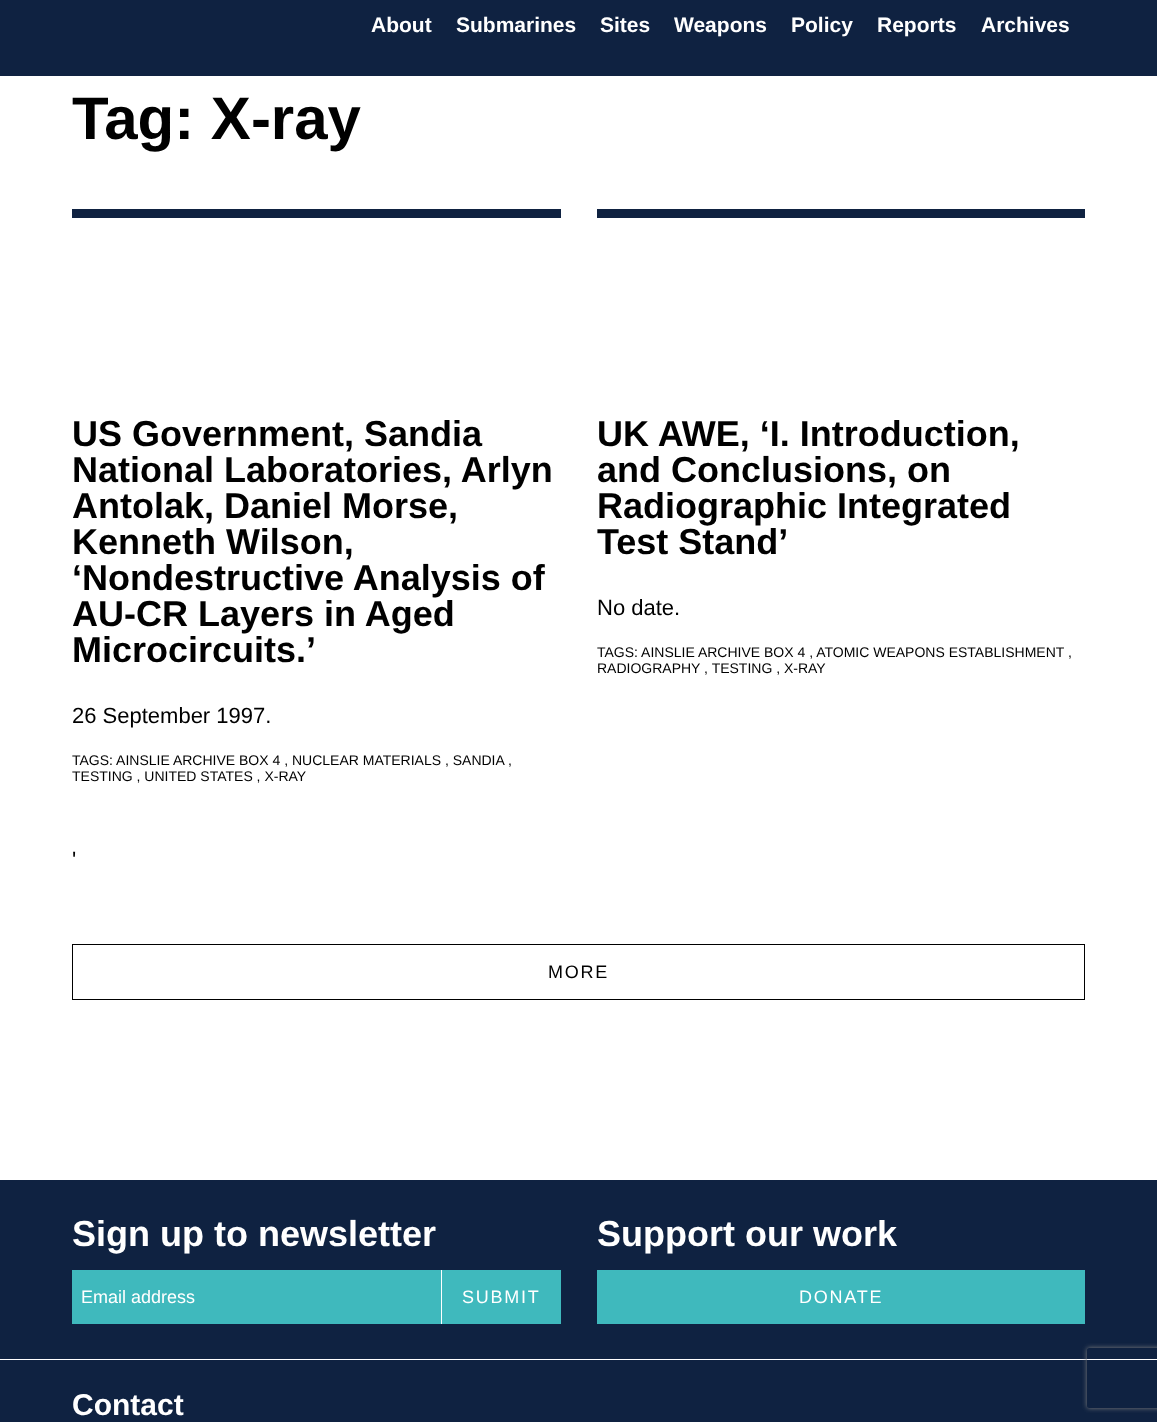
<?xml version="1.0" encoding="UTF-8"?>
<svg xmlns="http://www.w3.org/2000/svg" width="1157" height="1422">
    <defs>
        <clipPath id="clip1"><path d="M 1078 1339 H 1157 V 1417 H 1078 Z M 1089 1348 H 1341 C 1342 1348 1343 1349 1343 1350 V 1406 C 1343 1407 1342 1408 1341 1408 H 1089 C 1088 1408 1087 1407 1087 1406 V 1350 C 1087 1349 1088 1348 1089 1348 Z" clip-rule="evenodd"/></clipPath>
        <filter id="blur1" x="-50%" y="-200%" width="200%" height="500%"><feGaussianBlur stdDeviation="2.5"/></filter>
    </defs>
    <rect width="100%" height="100%" fill="#FFFFFF"/>
    <rect x="0" y="0" width="1157" height="76" fill="#0F2241"/>
    <text x="371" y="32" font-family="Liberation Sans" font-size="21" font-weight="700" fill="#FFFFFF">About</text>
    <text x="456" y="32" font-family="Liberation Sans" font-size="21" font-weight="700" fill="#FFFFFF">Submarines</text>
    <text x="600" y="32" font-family="Liberation Sans" font-size="21" font-weight="700" fill="#FFFFFF">Sites</text>
    <text x="674" y="32" font-family="Liberation Sans" font-size="21" font-weight="700" fill="#FFFFFF">Weapons</text>
    <text x="791" y="32" font-family="Liberation Sans" font-size="21" font-weight="700" fill="#FFFFFF">Policy</text>
    <text x="877" y="32" font-family="Liberation Sans" font-size="21" font-weight="700" fill="#FFFFFF">Reports</text>
    <text x="981" y="32" font-family="Liberation Sans" font-size="21" font-weight="700" fill="#FFFFFF">Archives</text>
    <text x="72" y="139" font-family="Liberation Sans" font-size="60" font-weight="700" fill="#000000">Tag: X-ray</text>
    <rect x="72" y="209" width="489" height="9" fill="#0F2241"/>
    <text font-family="Liberation Sans" font-size="36" font-weight="700" fill="#000000">
        <tspan x="72" y="446">US Government, Sandia</tspan>
        <tspan x="72" y="482">National Laboratories, Arlyn</tspan>
        <tspan x="72" y="518">Antolak, Daniel Morse,</tspan>
        <tspan x="72" y="554">Kenneth Wilson,</tspan>
        <tspan x="72" y="590">‘Nondestructive Analysis of</tspan>
        <tspan x="72" y="626">AU-CR Layers in Aged</tspan>
        <tspan x="72" y="662">Microcircuits.’</tspan>
    </text>
    <text x="72" y="723" font-family="Liberation Sans" font-size="22" fill="#000000">26 September 1997.</text>
    <text font-family="Liberation Sans" font-size="14" fill="#000000">
        <tspan x="72" y="765">TAGS: AINSLIE ARCHIVE BOX 4 , NUCLEAR MATERIALS , SANDIA ,</tspan>
        <tspan x="72" y="781">TESTING , UNITED STATES , X-RAY</tspan>
    </text>
    <rect x="597" y="209" width="488" height="9" fill="#0F2241"/>
    <text font-family="Liberation Sans" font-size="36" font-weight="700" fill="#000000">
        <tspan x="597" y="446">UK AWE, ‘I. Introduction,</tspan>
        <tspan x="597" y="482">and Conclusions, on</tspan>
        <tspan x="597" y="518">Radiographic Integrated</tspan>
        <tspan x="597" y="554">Test Stand’</tspan>
    </text>
    <text x="597" y="615" font-family="Liberation Sans" font-size="22" fill="#000000">No date.</text>
    <text font-family="Liberation Sans" font-size="14" fill="#000000">
        <tspan x="597" y="657">TAGS: AINSLIE ARCHIVE BOX 4 , ATOMIC WEAPONS ESTABLISHMENT ,</tspan>
        <tspan x="597" y="673">RADIOGRAPHY , TESTING , X-RAY</tspan>
    </text>
    <text x="72" y="867" font-family="Liberation Sans" font-size="22" fill="#000000">'</text>
    <rect x="72.5" y="944.5" width="1012" height="55" fill="none" stroke="#000000"/>
    <text x="548" y="978" font-family="Liberation Sans" font-size="18" letter-spacing="1.75" fill="#000000">MORE</text>
    <rect x="0" y="1180" width="1157" height="242" fill="#0F2241"/>
    <text x="72" y="1246" font-family="Liberation Sans" font-size="36" font-weight="700" fill="#FFFFFF">Sign up to newsletter</text>
    <rect x="72" y="1270" width="369" height="54" fill="#3FB9BD"/>
    <text x="81" y="1303" font-family="Liberation Sans" font-size="18" fill="#FFFFFF">Email address</text>
    <rect x="442" y="1270" width="119" height="54" fill="#3FB9BD"/>
    <rect x="441" y="1270" width="1" height="54" fill="#FFFFFF"/>
    <text x="462" y="1303" font-family="Liberation Sans" font-size="18" letter-spacing="1.75" fill="#FFFFFF">SUBMIT</text>
    <text x="597" y="1246" font-family="Liberation Sans" font-size="36" font-weight="700" fill="#FFFFFF">Support our work</text>
    <rect x="597" y="1270" width="488" height="54" fill="#3FB9BD"/>
    <text x="799" y="1303" font-family="Liberation Sans" font-size="18" letter-spacing="1.75" fill="#FFFFFF">DONATE</text>
    <rect x="0" y="1359" width="1157" height="1" fill="#FFFFFF"/>
    <text x="72" y="1415" font-family="Liberation Sans" font-size="30" font-weight="700" fill="#FFFFFF">Contact</text>
    <g clip-path="url(#clip1)">
        <rect x="1087" y="1348" width="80" height="60" rx="2" fill="#808080" filter="url(#blur1)"/>
    </g>
</svg>
